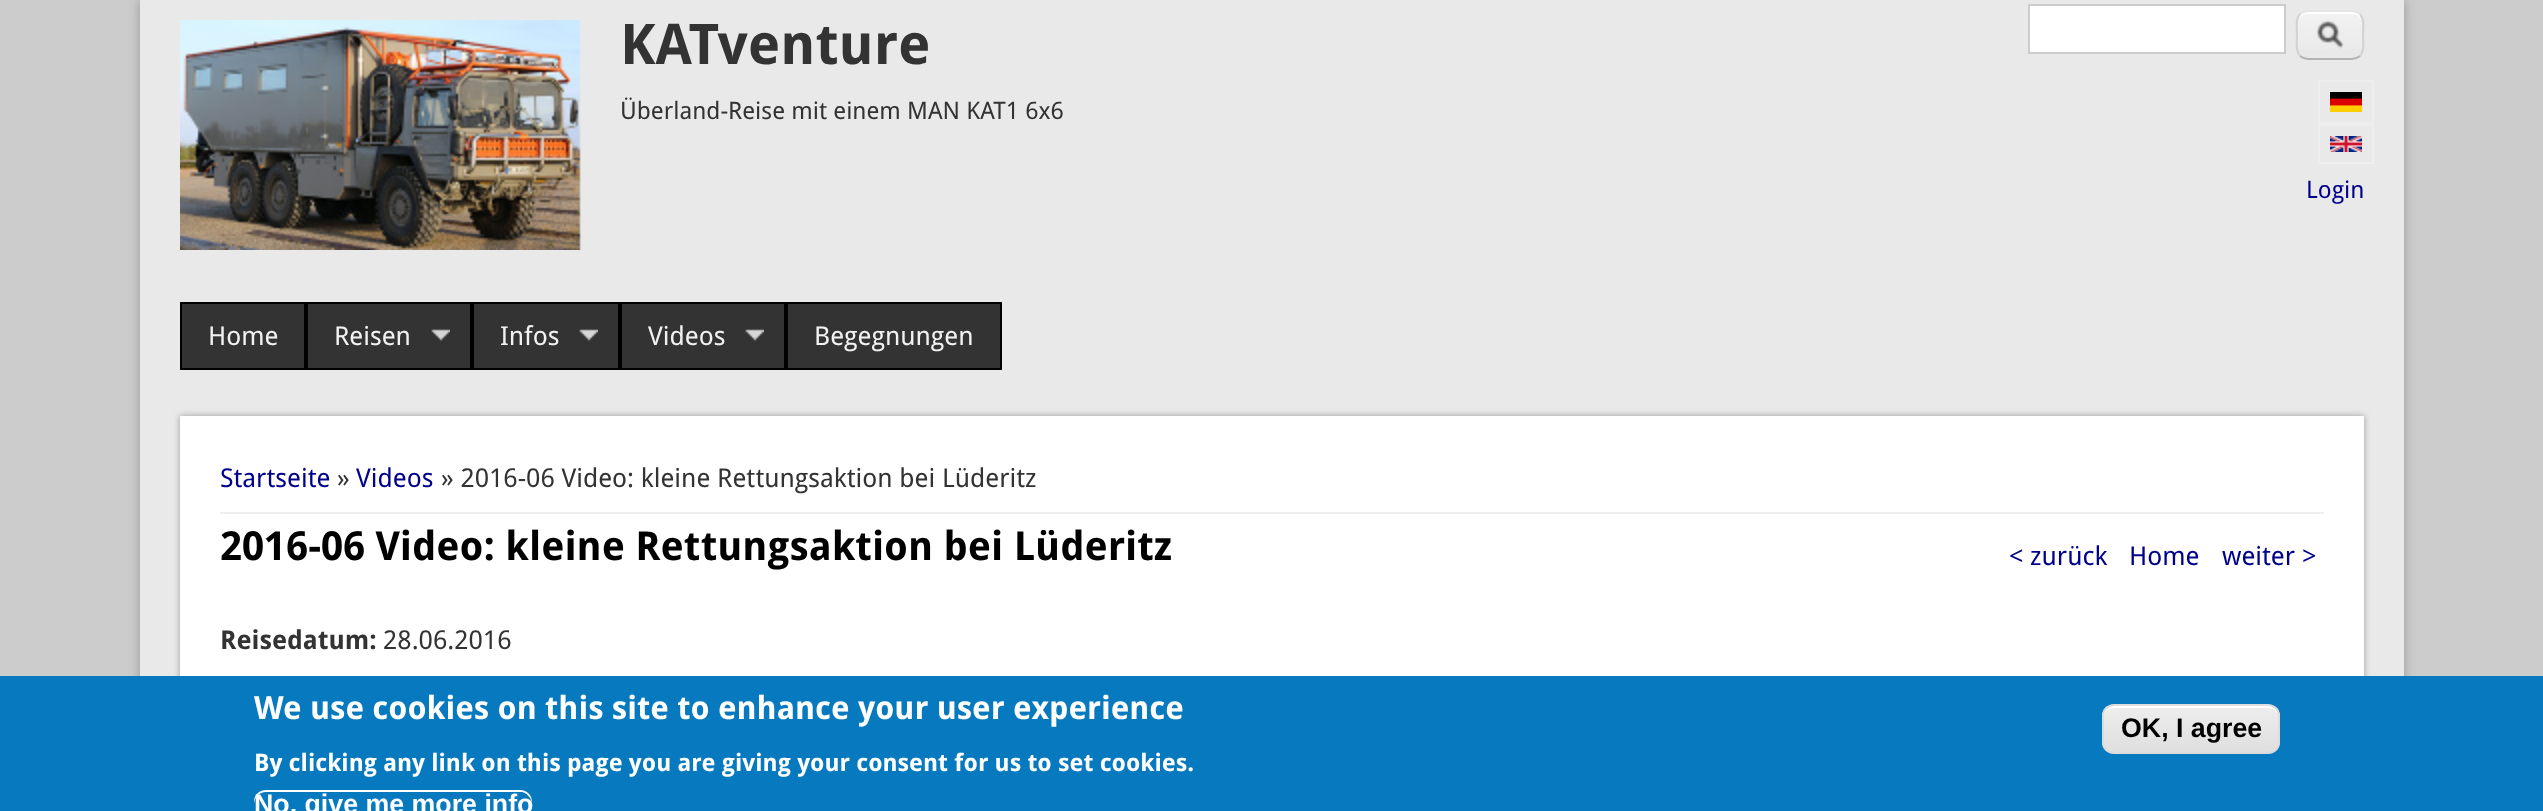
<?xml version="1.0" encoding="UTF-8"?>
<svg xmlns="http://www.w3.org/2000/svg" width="2543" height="811">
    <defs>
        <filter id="blur1" x="-50%" y="-200%" width="200%" height="500%"><feGaussianBlur stdDeviation="6"/></filter>
        <filter id="blur2" x="-50%" y="-200%" width="200%" height="500%"><feGaussianBlur stdDeviation="3"/></filter>
        <clipPath id="clip1"><rect x="2102" y="704" width="178" height="50" rx="12"/></clipPath>
        <linearGradient id="g1" gradientUnits="userSpaceOnUse" x1="2191" y1="706" x2="2191" y2="752"><stop offset="0.05" stop-color="#EDEDED"/><stop offset="1" stop-color="#DFDFDF"/></linearGradient>
    </defs>
    <rect width="100%" height="100%" fill="#CCCCCC"/>
    <rect x="140" y="0" width="2264" height="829" fill="#999999" filter="url(#blur1)"/>
    <rect x="140" y="0" width="2264" height="676" fill="#E9E9E9"/>
    <image x="180" y="20" width="401" height="230" href="img_01.png"/>
    <text x="620" y="64" font-family="Droid Sans" font-size="56" font-weight="700" fill="#333333">KATventure</text>
    <text x="620" y="119" font-family="Droid Sans" font-size="24" fill="#333333">Überland-Reise mit einem MAN KAT1 6x6</text>
    <rect x="2029" y="5" width="256" height="48" fill="#FFFFFF" stroke="#CCCCCC" stroke-width="2"/>
    <image x="2296" y="12" width="68" height="37" href="img_02.png"/>
    <path d="M 2308 14 H 2352 C 2358 14 2362 18 2362 24 C 2362 12 2355 12 2345 12 H 2315 C 2305 12 2298 12 2298 24 C 2298 18 2302 14 2308 14 Z" fill="#FFFFFF"/>
    <path d="M 2300 14 C 2302.5 12 2305 11 2308 11 H 2352 C 2355 11 2357.5 12 2360 14" fill="none" stroke="#E4E4E4" stroke-width="2"/>
    <path d="M 2360 14 C 2365 19.5 2363 28.5 2363 35 C 2363 41.5 2365 50.5 2360 56" fill="none" stroke="#D2D2D2" stroke-width="2"/>
    <path d="M 2360 56 C 2357.5 58 2355 59 2352 59 H 2308 C 2305 59 2302.5 58 2300 56" fill="none" stroke="#B4B4B4" stroke-width="2"/>
    <path d="M 2300 56 C 2295 50.5 2297 41.5 2297 35 C 2297 28.5 2295 19.5 2300 14" fill="none" stroke="#D2D2D2" stroke-width="2"/>
    <rect x="2319" y="81" width="54" height="42" fill="none" stroke="#EEEEEE" stroke-width="2"/>
    <image x="2330" y="92" width="32" height="20" href="img_03.png"/>
    <rect x="2319" y="125" width="54" height="38" fill="none" stroke="#EEEEEE" stroke-width="2"/>
    <image x="2330" y="136" width="32" height="16" href="img_04.png"/>
    <text x="2306" y="198" font-family="Droid Sans" font-size="24" fill="#00008B">Login</text>
    <rect x="181" y="303" width="124" height="66" fill="#333333" stroke="#000000" stroke-width="2"/>
    <text x="208" y="345" font-family="Droid Sans" font-size="26" fill="#F1F1F1">Home</text>
    <rect x="307" y="303" width="164" height="66" fill="#333333" stroke="#000000" stroke-width="2"/>
    <text x="334" y="345" font-family="Droid Sans" font-size="26" fill="#F1F1F1">Reisen</text>
    <image x="431" y="329" width="19" height="12" href="img_05.png"/>
    <rect x="473" y="303" width="146" height="66" fill="#333333" stroke="#000000" stroke-width="2"/>
    <text x="500" y="345" font-family="Droid Sans" font-size="26" fill="#F1F1F1">Infos</text>
    <image x="579" y="329" width="19" height="12" href="img_05.png"/>
    <rect x="621" y="303" width="164" height="66" fill="#333333" stroke="#000000" stroke-width="2"/>
    <text x="648" y="345" font-family="Droid Sans" font-size="26" fill="#F1F1F1">Videos</text>
    <image x="745" y="329" width="19" height="12" href="img_05.png"/>
    <rect x="787" y="303" width="214" height="66" fill="#333333" stroke="#000000" stroke-width="2"/>
    <text x="814" y="345" font-family="Droid Sans" font-size="26" fill="#F1F1F1">Begegnungen</text>
    <rect x="180" y="416" width="2184" height="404" fill="#999999" filter="url(#blur2)"/>
    <rect x="180" y="416" width="2184" height="260" fill="#FFFFFF"/>
    <rect x="220" y="512" width="2104" height="2" fill="#EEEEEE"/>
    <text x="220" y="487" font-family="Droid Sans" font-size="26" fill="#00008B">Startseite</text>
    <text x="337" y="487" font-family="Droid Sans" font-size="26" fill="#333333">»</text>
    <text x="356" y="487" font-family="Droid Sans" font-size="26" fill="#00008B">Videos</text>
    <text x="441" y="487" font-family="Droid Sans" font-size="26" fill="#333333">» 2016-06 Video: kleine Rettungsaktion bei Lüderitz</text>
    <text x="220" y="560" font-family="Droid Sans" font-size="40" font-weight="700" fill="#000000">2016-06 Video: kleine Rettungsaktion bei Lüderitz</text>
    <text x="2009" y="565" font-family="Droid Sans" font-size="26" fill="#00008B">&lt; zurück</text>
    <text x="2129" y="565" font-family="Droid Sans" font-size="26" fill="#00008B">Home</text>
    <text x="2222" y="565" font-family="Droid Sans" font-size="26" fill="#00008B">weiter &gt;</text>
    <text x="220" y="649" font-family="Droid Sans" font-size="26" font-weight="700" fill="#333333">Reisedatum:</text>
    <text x="383" y="649" font-family="Droid Sans" font-size="26" fill="#333333">28.06.2016</text>
    <rect x="0" y="676" width="2543" height="135" fill="#0779BF"/>
    <text x="254" y="719" font-family="Droid Sans" font-size="32" font-weight="700" fill="#FFFFFF">We use cookies on this site to enhance your user experience</text>
    <text x="254" y="771" font-family="Droid Sans" font-size="24" font-weight="700" fill="#FFFFFF">By clicking any link on this page you are giving your consent for us to set cookies.</text>
    <path d="M 266 792 H 522 C 527 793 531 798 532 803 V 802 C 532 795 527 790 520 790 H 266 C 259 790 254 795 254 802 V 803 C 255 797 259 792 266 792 Z" fill="#FFFFFF"/>
    <text x="254" y="813" font-family="Liberation Sans" font-size="26.75" font-weight="700" fill="#FFFFFF">No, give me more info</text>
    <g clip-path="url(#clip1)">
        <rect x="2102" y="706" width="178" height="46" fill="url(#g1)"/>
    </g>
    <path d="M 2114 708 H 2268 C 2274 708 2278 712 2278 718 V 716 C 2278 710 2274 706 2268 706 H 2114 C 2108 706 2104 710 2104 716 V 718 C 2104 712 2108 708 2114 708 Z" fill="#FFFFFF"/>
    <rect x="2103" y="705" width="176" height="48" rx="11" fill="none" stroke="#DCDCDC" stroke-width="2"/>
    <text x="2121" y="737" font-family="Liberation Sans" font-size="26.75" font-weight="700" fill="#000000">OK, I agree</text>
</svg>
